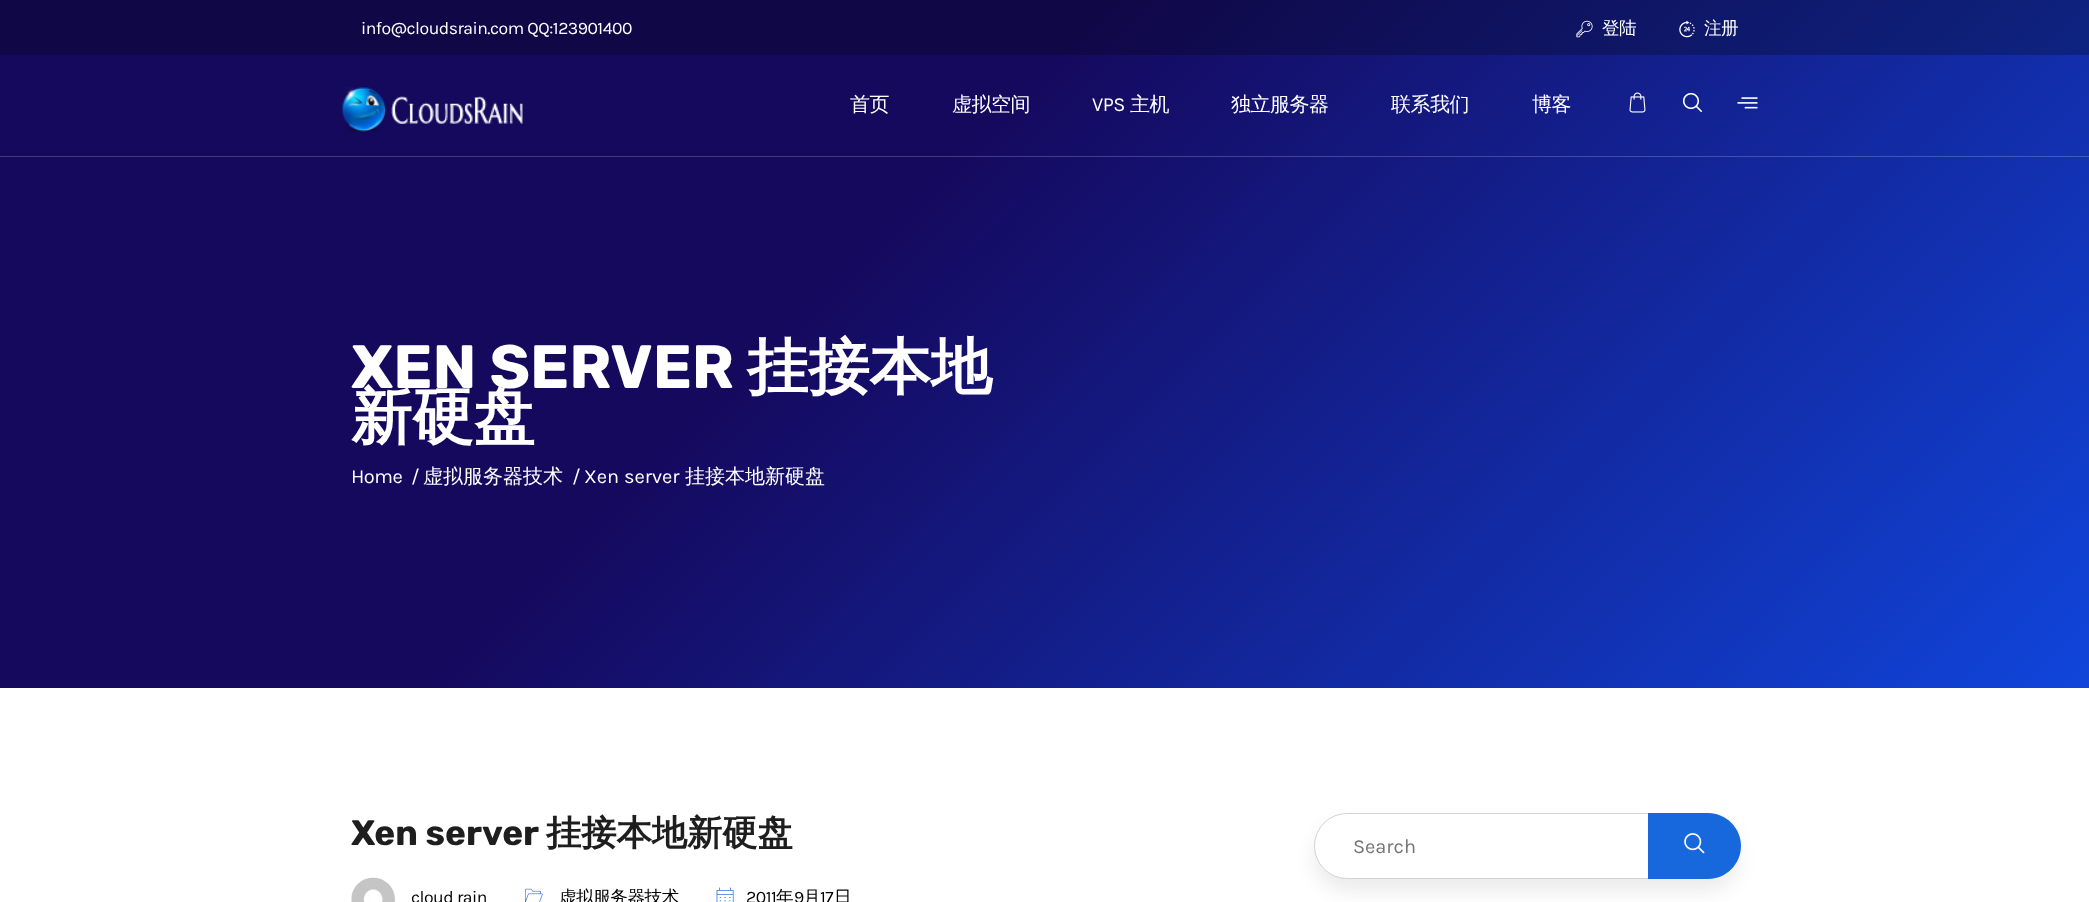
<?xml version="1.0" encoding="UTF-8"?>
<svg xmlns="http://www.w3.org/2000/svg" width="2089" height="902">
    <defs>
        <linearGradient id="g1" gradientUnits="userSpaceOnUse" x1="1739" y1="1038" x2="351" y2="-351"><stop offset="0" stop-color="#0C34A4"/><stop offset="0.6" stop-color="#100747"/><stop offset="0.99" stop-color="#100747"/></linearGradient>
        <linearGradient id="g2" gradientUnits="userSpaceOnUse" x1="1739" y1="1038" x2="351" y2="-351"><stop offset="0" stop-color="#1045DB"/><stop offset="0.6" stop-color="#15095E"/><stop offset="0.99" stop-color="#15095E"/></linearGradient>
        <linearGradient id="g3" gradientUnits="userSpaceOnUse" x1="1739" y1="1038" x2="351" y2="-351"><stop offset="0" stop-color="#406AE2"/><stop offset="0.6" stop-color="#443A7E"/><stop offset="0.99" stop-color="#443A7E"/></linearGradient>
        <filter id="blur1" x="-50%" y="-200%" width="200%" height="500%"><feGaussianBlur stdDeviation="9.5"/></filter>
    </defs>
    <rect width="100%" height="100%" fill="#FFFFFF"/>
    <rect x="0" y="0" width="2089" height="55" fill="url(#g1)"/>
    <text x="361" y="34" font-family="Karla" font-size="17.6" letter-spacing="-0.5" fill="#FFFFFF">info@cloudsrain.com QQ:123901400</text>
    <image x="1576" y="20" width="17" height="18" href="img_01.png"/>
    <text x="1602" y="34" font-family="WenQuanYi Zen Hei" font-size="17.6" font-weight="500" letter-spacing="-0.5" fill="#FFFFFF">登陆</text>
    <image x="1679" y="20" width="16" height="18" href="img_02.png"/>
    <text x="1704" y="34" font-family="WenQuanYi Zen Hei" font-size="17.6" font-weight="500" letter-spacing="-0.5" fill="#FFFFFF">注册</text>
    <rect x="0" y="55" width="2089" height="633" fill="url(#g2)"/>
    <image x="342" y="87" width="181" height="45" href="img_03.png"/>
    <text x="850" y="111" font-family="WenQuanYi Zen Hei" font-size="20" font-weight="500" letter-spacing="-0.5" fill="#FFFFFF">首页</text>
    <text x="952" y="111" font-family="WenQuanYi Zen Hei" font-size="20" font-weight="500" letter-spacing="-0.5" fill="#FFFFFF">虚拟空间</text>
    <text x="1092" y="111" font-family="Karla" font-size="20" letter-spacing="-0.5" fill="#FFFFFF">VPS</text>
    <text x="1130" y="111" font-family="WenQuanYi Zen Hei" font-size="20" font-weight="500" letter-spacing="-0.5" fill="#FFFFFF">主机</text>
    <text x="1231" y="111" font-family="WenQuanYi Zen Hei" font-size="20" font-weight="500" letter-spacing="-0.5" fill="#FFFFFF">独立服务器</text>
    <text x="1391" y="111" font-family="WenQuanYi Zen Hei" font-size="20" font-weight="500" letter-spacing="-0.5" fill="#FFFFFF">联系我们</text>
    <text x="1532" y="111" font-family="WenQuanYi Zen Hei" font-size="20" font-weight="500" letter-spacing="-0.5" fill="#FFFFFF">博客</text>
    <image x="1629" y="92" width="17" height="21" href="img_04.png"/>
    <image x="1682" y="92" width="20" height="20" href="img_05.png"/>
    <image x="1737" y="97" width="21" height="12" href="img_06.png"/>
    <rect x="0" y="156" width="2089" height="1" fill="url(#g3)"/>
    <text x="351" y="388" font-family="Rubik" font-size="61.25" font-weight="700" fill="#FFFFFF">XEN SERVER</text>
    <text x="747" y="388" font-family="WenQuanYi Zen Hei" font-size="61.25" font-weight="700" fill="#FFFFFF">挂接本地</text>
    <text x="351" y="438" font-family="WenQuanYi Zen Hei" font-size="61.25" font-weight="700" fill="#FFFFFF">新硬盘</text>
    <text x="351" y="483" font-family="Karla" font-size="20" letter-spacing="-0.5" fill="#FFFFFF">Home</text>
    <text x="411" y="483" font-family="Karla" font-size="20" fill="#FFFFFF">/</text>
    <text x="423" y="483" font-family="WenQuanYi Zen Hei" font-size="20" font-weight="500" fill="#FFFFFF">虚拟服务器技术</text>
    <text x="572" y="483" font-family="Karla" font-size="20" fill="#FFFFFF">/</text>
    <text x="584" y="483" font-family="Karla" font-size="20" fill="#FFFFFF">Xen server</text>
    <text x="685" y="483" font-family="WenQuanYi Zen Hei" font-size="20" font-weight="500" fill="#FFFFFF">挂接本地新硬盘</text>
    <text x="351" y="845" font-family="Rubik" font-size="35.25" font-weight="700" fill="#1E1E1E">Xen server</text>
    <text x="546" y="845" font-family="WenQuanYi Zen Hei" font-size="35.25" font-weight="700" fill="#1E1E1E">挂接本地新硬盘</text>
    <image x="351" y="877" width="44" height="25" href="img_07.png"/>
    <text x="411" y="903" font-family="Karla" font-size="17.6" letter-spacing="-0.5" fill="#000000">cloud rain</text>
    <image x="525" y="888" width="18" height="14" href="img_08.png"/>
    <text x="559" y="903" font-family="WenQuanYi Zen Hei" font-size="17.6" font-weight="500" letter-spacing="-0.5" fill="#000000">虚拟服务器技术</text>
    <image x="716" y="887" width="18" height="15" href="img_09.png"/>
    <text x="746" y="903" font-family="Karla" font-size="17.6" letter-spacing="-0.5" fill="#000000">2011</text>
    <text x="776" y="903" font-family="WenQuanYi Zen Hei" font-size="17.6" font-weight="500" letter-spacing="-0.5" fill="#000000">年</text>
    <text x="794" y="903" font-family="Karla" font-size="17.6" letter-spacing="-0.5" fill="#000000">9</text>
    <text x="803" y="903" font-family="WenQuanYi Zen Hei" font-size="17.6" font-weight="500" letter-spacing="-0.5" fill="#000000">月</text>
    <text x="820" y="903" font-family="Karla" font-size="17.6" letter-spacing="-0.5" fill="#000000">17</text>
    <text x="834" y="903" font-family="WenQuanYi Zen Hei" font-size="17.6" font-weight="500" letter-spacing="-0.5" fill="#000000">日</text>
    <rect x="1314" y="825" width="425" height="66" rx="33" fill="#000000" fill-opacity="0.08" filter="url(#blur1)"/>
    <rect x="1314.5" y="813.5" width="424" height="65" rx="32.5" fill="#FFFFFF" stroke="#D4D3D3"/>
    <text x="1353" y="853" font-family="Karla" font-size="20" fill="#757575">Search</text>
    <path d="M 1648 813 H 1708 C 1726 813 1741 828 1741 846 C 1741 864 1726 879 1708 879 H 1648 Z" fill="#1868DD"/>
    <image x="1684" y="833" width="21" height="21" href="img_10.png"/>
</svg>
